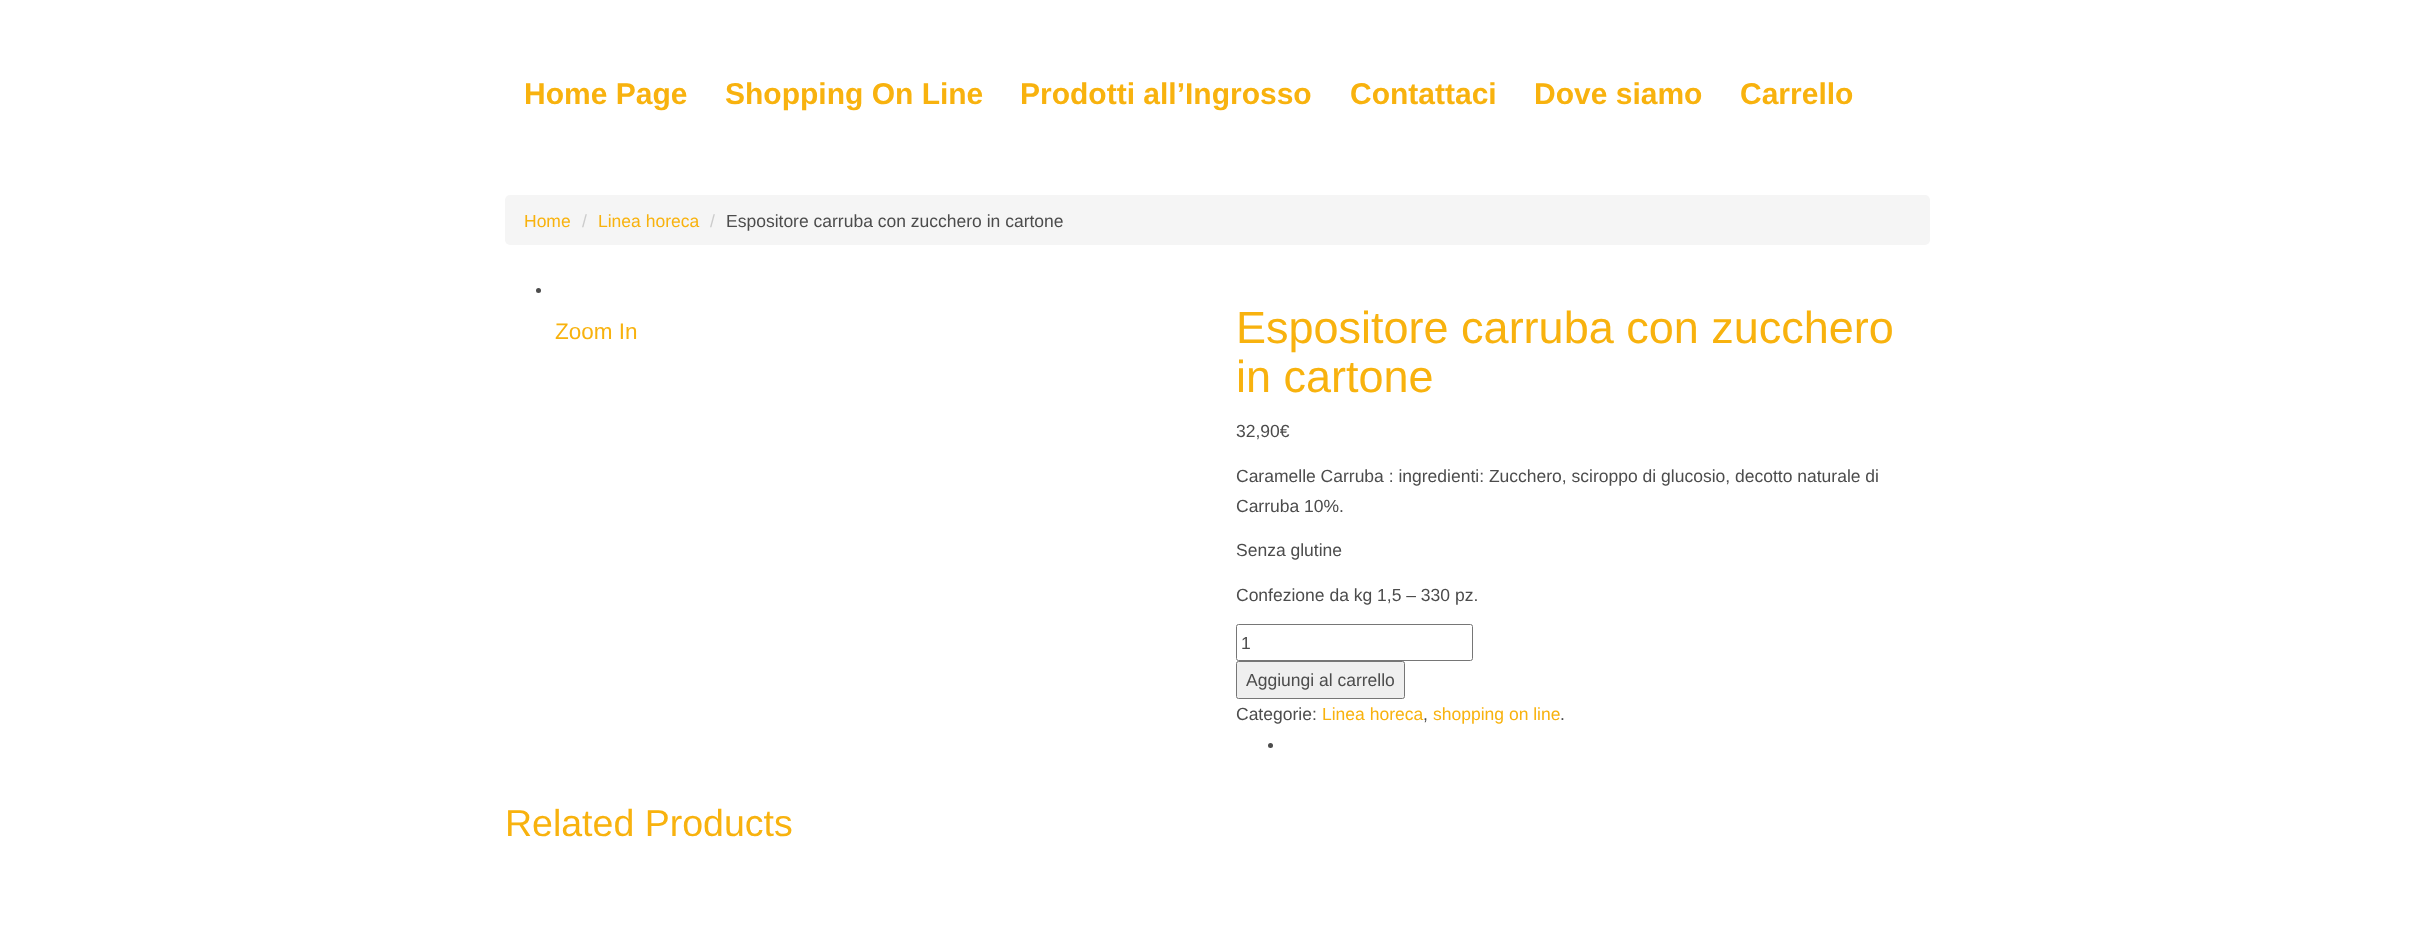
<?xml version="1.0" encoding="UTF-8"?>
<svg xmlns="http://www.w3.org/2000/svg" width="2435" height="937">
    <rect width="100%" height="100%" fill="#FFFFFF"/>
    <text x="524" y="104" font-family="Liberation Sans" font-size="30" font-weight="700" fill="#F8B20E">Home Page</text>
    <text x="725" y="104" font-family="Liberation Sans" font-size="30" font-weight="700" fill="#F8B20E">Shopping On Line</text>
    <text x="1020" y="104" font-family="Liberation Sans" font-size="30" font-weight="700" fill="#F8B20E">Prodotti all’Ingrosso</text>
    <text x="1350" y="104" font-family="Liberation Sans" font-size="30" font-weight="700" fill="#F8B20E">Contattaci</text>
    <text x="1534" y="104" font-family="Liberation Sans" font-size="30" font-weight="700" fill="#F8B20E">Dove siamo</text>
    <text x="1740" y="104" font-family="Liberation Sans" font-size="30" font-weight="700" fill="#F8B20E">Carrello</text>
    <rect x="505" y="195" width="1425" height="50" rx="5" fill="#F5F5F5"/>
    <text x="524" y="227" font-family="Liberation Sans" font-size="17.5" fill="#F8B20E">Home</text>
    <text x="582" y="227" font-family="Liberation Sans" font-size="17.5" fill="#CCCCCC">/</text>
    <text x="598" y="227" font-family="Liberation Sans" font-size="17.5" fill="#F8B20E">Linea horeca</text>
    <text x="710" y="227" font-family="Liberation Sans" font-size="17.5" fill="#CCCCCC">/</text>
    <text x="726" y="227" font-family="Liberation Sans" font-size="17.5" fill="#4C4C4C">Espositore carruba con zucchero in cartone</text>
    <circle cx="538.5" cy="290.5" r="2.5" fill="#4C4C4C"/>
    <text x="555" y="339" font-family="Liberation Sans" font-size="22.5" fill="#F8B20E">Zoom In</text>
    <text font-family="Liberation Sans" font-size="45" fill="#F8B20E">
        <tspan x="1236" y="343">Espositore carruba con zucchero</tspan>
        <tspan x="1236" y="392">in cartone</tspan>
    </text>
    <text x="1236" y="437" font-family="Liberation Sans" font-size="17.5" fill="#4C4C4C">32,90€</text>
    <text font-family="Liberation Sans" font-size="17.5" fill="#4C4C4C">
        <tspan x="1236" y="482">Caramelle Carruba : ingredienti: Zucchero, sciroppo di glucosio, decotto naturale di</tspan>
        <tspan x="1236" y="512">Carruba 10%.</tspan>
    </text>
    <text x="1236" y="556" font-family="Liberation Sans" font-size="17.5" fill="#4C4C4C">Senza glutine</text>
    <text x="1236" y="601" font-family="Liberation Sans" font-size="17.5" fill="#4C4C4C">Confezione da kg 1,5 – 330 pz.</text>
    <rect x="1236.5" y="624.5" width="236" height="36" rx="2" fill="none" stroke="#767676"/>
    <text x="1241" y="649" font-family="Liberation Sans" font-size="17.5" fill="#4C4C4C">1</text>
    <rect x="1236.5" y="661.5" width="168" height="37" rx="2" fill="#EFEFEF" stroke="#767676"/>
    <text x="1246" y="686" font-family="Liberation Sans" font-size="17.5" fill="#4C4C4C">Aggiungi al carrello</text>
    <text x="1236" y="720" font-family="Liberation Sans" font-size="17.5" fill="#4C4C4C">Categorie:</text>
    <text x="1322" y="720" font-family="Liberation Sans" font-size="17.5" fill="#F8B20E">Linea horeca</text>
    <text x="1423" y="720" font-family="Liberation Sans" font-size="17.5" fill="#4C4C4C">,</text>
    <text x="1433" y="720" font-family="Liberation Sans" font-size="17.5" fill="#F8B20E">shopping on line</text>
    <text x="1560" y="720" font-family="Liberation Sans" font-size="17.5" fill="#4C4C4C">.</text>
    <circle cx="1270.5" cy="745.5" r="2.5" fill="#4C4C4C"/>
    <text x="505" y="836" font-family="Liberation Sans" font-size="37.5" fill="#F8B20E">Related Products</text>
</svg>
